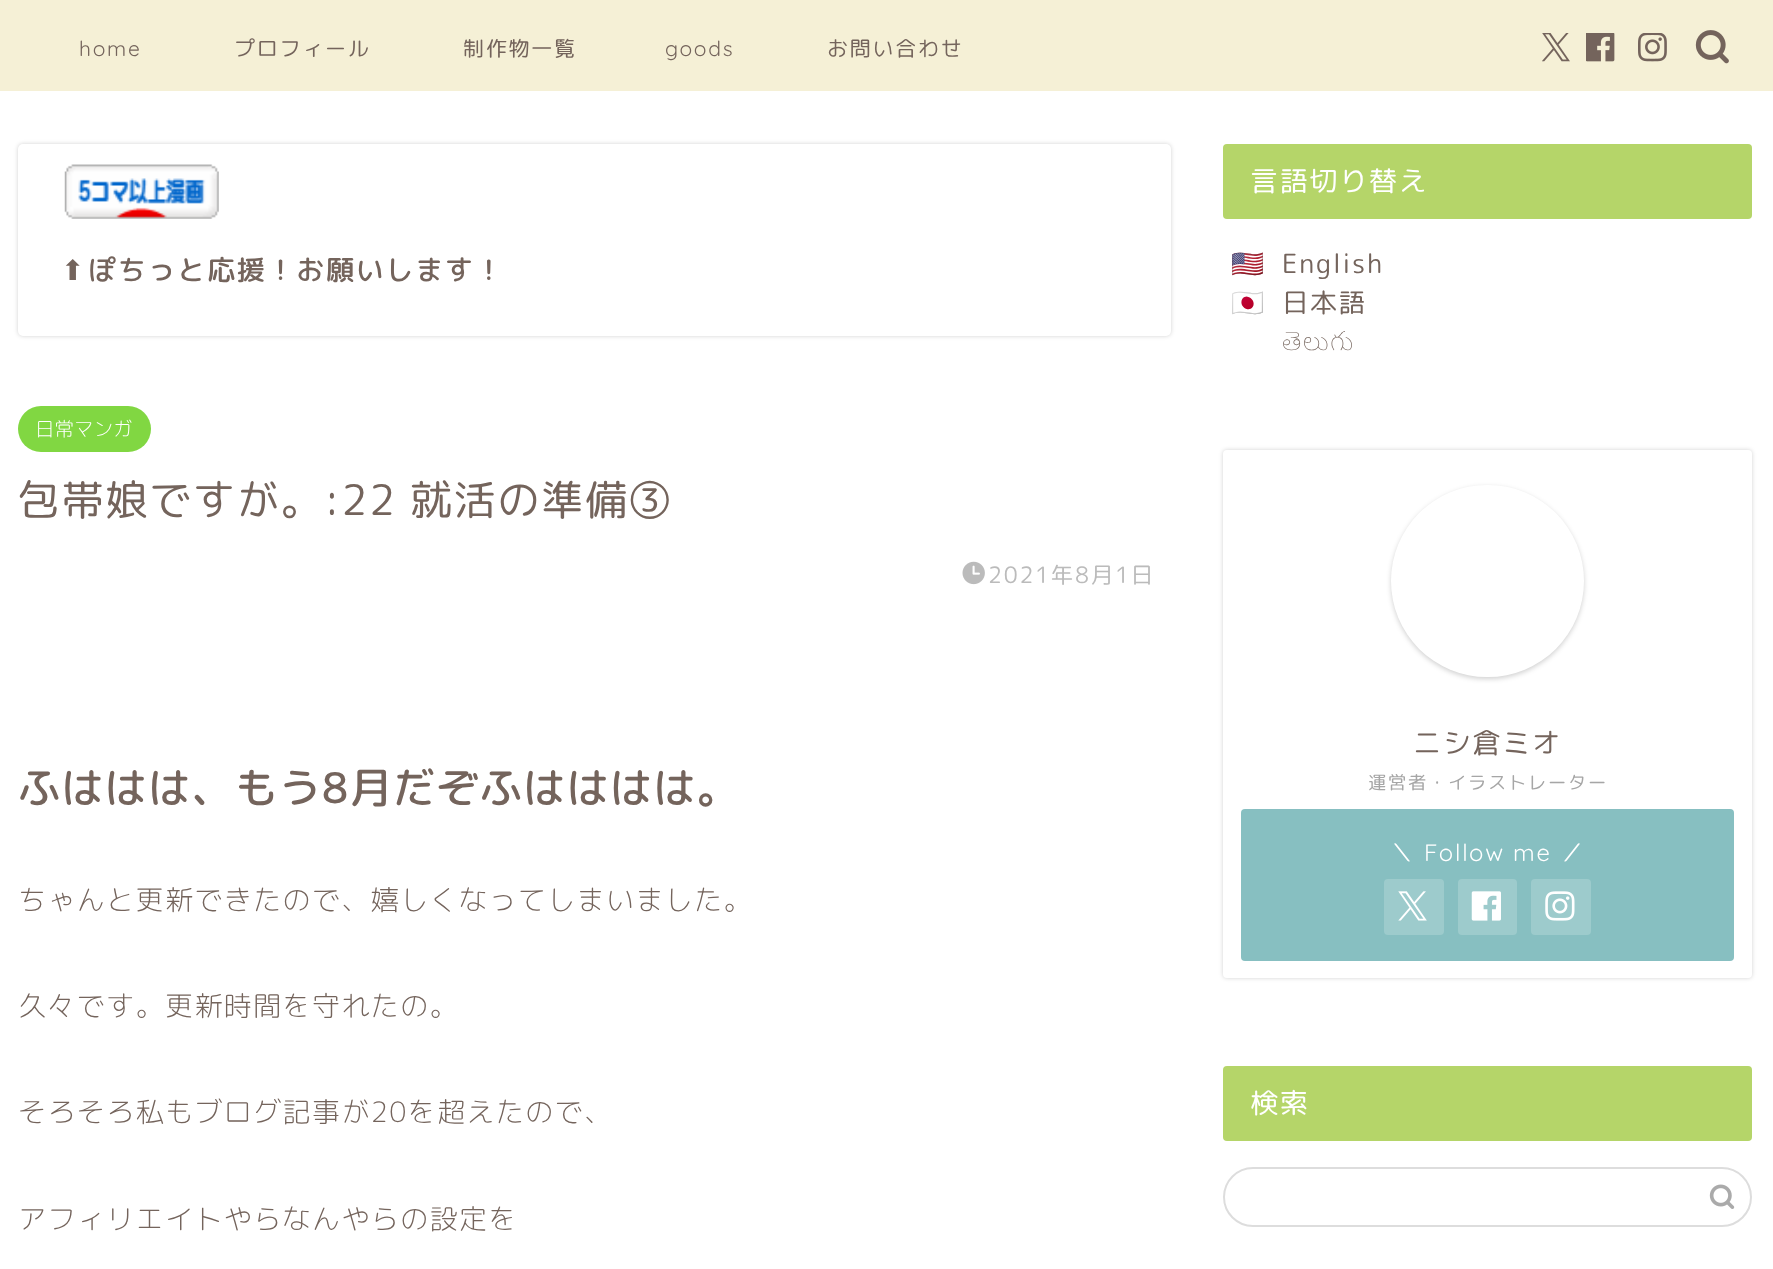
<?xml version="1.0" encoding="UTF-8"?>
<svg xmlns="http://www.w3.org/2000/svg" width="1773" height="1269">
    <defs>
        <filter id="blur1" x="-50%" y="-200%" width="200%" height="500%"><feGaussianBlur stdDeviation="2"/></filter>
        <filter id="blur2" x="-50%" y="-200%" width="200%" height="500%"><feGaussianBlur stdDeviation="2.5"/></filter>
    </defs>
    <rect width="100%" height="100%" fill="#FFFFFF"/>
    <rect x="0" y="0" width="1773" height="91" fill="#F5F0D6"/>
    <text x="79" y="56" font-family="Quicksand" font-size="21" font-weight="300" letter-spacing="1.75" fill="#74645C">home</text>
    <text x="234" y="56" font-family="'Rounded Mplus 1c'" font-size="21" letter-spacing="1.75" fill="#74645C">プロフィール</text>
    <text x="463" y="56" font-family="'Rounded Mplus 1c'" font-size="21" letter-spacing="1.75" fill="#74645C">制作物一覧</text>
    <text x="665" y="56" font-family="Quicksand" font-size="21" font-weight="300" letter-spacing="1.75" fill="#74645C">goods</text>
    <text x="827" y="56" font-family="'Rounded Mplus 1c'" font-size="21" letter-spacing="1.75" fill="#74645C">お問い合わせ</text>
    <image x="1542" y="33" width="28" height="29" href="img_01.png"/>
    <image x="1586" y="33" width="29" height="29" href="img_02.png"/>
    <image x="1638" y="33" width="29" height="29" href="img_03.png"/>
    <image x="1695" y="30" width="34" height="34" href="img_04.png"/>
    <rect x="18" y="144" width="1153" height="192" rx="5" fill="#000000" fill-opacity="0.18" filter="url(#blur1)"/>
    <rect x="18" y="144" width="1153" height="192" rx="5" fill="#FFFFFF"/>
    <image x="64" y="164" width="155" height="55" href="img_05.png"/>
    <text x="61" y="280" font-family="DejaVu Sans" font-size="28" letter-spacing="1.75" fill="#74645C">⬆︎</text>
    <text x="88" y="280" font-family="'Rounded Mplus 1c'" font-size="28" font-weight="500" letter-spacing="1.75" fill="#74645C">ぽちっと応援！お願いします！</text>
    <rect x="18" y="406" width="133" height="46" rx="23" fill="#81D742"/>
    <text x="35" y="436" font-family="'Rounded Mplus 1c'" font-size="19.5" font-weight="300" fill="#FFFFFF">日常マンガ</text>
    <text x="18" y="515" font-family="'Rounded Mplus 1c'" font-size="42" letter-spacing="1.75" fill="#74645C">包帯娘ですが。:22 就活の準備③</text>
    <image x="962" y="561" width="23" height="24" href="img_06.png"/>
    <text x="988" y="583" font-family="'Rounded Mplus 1c'" font-size="22.5" letter-spacing="1.75" fill="#BBBBBB">2021年8月1日</text>
    <text x="18" y="803" font-family="'Rounded Mplus 1c'" font-size="42" font-weight="500" letter-spacing="1.4" fill="#74645C">ふははは、もう8月だぞふはははは。</text>
    <text x="18" y="910" font-family="'Rounded Mplus 1c'" font-size="28" font-weight="300" letter-spacing="1.4" fill="#74645C">ちゃんと更新できたので、嬉しくなってしまいました。</text>
    <text x="18" y="1016" font-family="'Rounded Mplus 1c'" font-size="28" font-weight="300" letter-spacing="1.4" fill="#74645C">久々です。更新時間を守れたの。</text>
    <text x="18" y="1122" font-family="'Rounded Mplus 1c'" font-size="28" font-weight="300" letter-spacing="1.4" fill="#74645C">そろそろ私もブログ記事が20を超えたので、</text>
    <text x="18" y="1229" font-family="'Rounded Mplus 1c'" font-size="28" font-weight="300" letter-spacing="1.4" fill="#74645C">アフィリエイトやらなんやらの設定を</text>
    <rect x="1223" y="144" width="529" height="75" rx="4" fill="#B5D569"/>
    <text x="1250" y="191" font-family="'Rounded Mplus 1c'" font-size="28" letter-spacing="1.75" fill="#FFFFFF">言語切り替え</text>
    <text x="1231" y="273" font-family="Noto Color Emoji" font-size="26.5" letter-spacing="1.75" fill="#74645C">🇺🇸</text>
    <text x="1282" y="273" font-family="'Rounded Mplus 1c'" font-size="26.5" letter-spacing="1.75" fill="#74645C">English</text>
    <text x="1231" y="312" font-family="Noto Color Emoji" font-size="26.5" letter-spacing="1.75" fill="#74645C">🇯🇵</text>
    <text x="1282" y="312" font-family="'Rounded Mplus 1c'" font-size="26.5" letter-spacing="1.75" fill="#74645C">日本語</text>
    <text x="1282" y="350" font-family="Noto Sans Telugu" font-size="26.5" font-weight="100" letter-spacing="1.75" fill="#74645C">తెలుగు</text>
    <rect x="1223" y="450" width="529" height="528" rx="4" fill="#000000" fill-opacity="0.18" filter="url(#blur1)"/>
    <rect x="1223" y="450" width="529" height="528" rx="4" fill="#FFFFFF"/>
    <rect x="1391" y="487" width="193" height="192" rx="96" fill="#000000" fill-opacity="0.18" filter="url(#blur2)"/>
    <rect x="1391" y="485" width="193" height="192" rx="96" fill="#FFFFFF"/>
    <text x="1413" y="753" font-family="'Rounded Mplus 1c'" font-size="28" letter-spacing="1.75" fill="#74645C">ニシ倉ミオ</text>
    <text x="1368" y="789" font-family="'Rounded Mplus 1c'" font-size="18.25" letter-spacing="1.75" fill="#A6A6A6">運営者・イラストレーター</text>
    <rect x="1241" y="809" width="493" height="152" rx="4" fill="#87BFC1"/>
    <text x="1390" y="861" font-family="'Rounded Mplus 1c'" font-size="23.75" letter-spacing="1.75" fill="#FFFFFF">＼</text>
    <text x="1424" y="861" font-family="Quicksand" font-size="23.75" font-weight="300" letter-spacing="1.75" fill="#FFFFFF">Follow me</text>
    <text x="1560" y="861" font-family="'Rounded Mplus 1c'" font-size="23.75" letter-spacing="1.75" fill="#FFFFFF">／</text>
    <rect x="1384" y="879" width="60" height="56" rx="4" fill="#9DCBCC"/>
    <image x="1398" y="891" width="29" height="30" href="img_07.png"/>
    <rect x="1458" y="879" width="59" height="56" rx="4" fill="#9DCBCC"/>
    <image x="1471" y="891" width="30" height="30" href="img_08.png"/>
    <rect x="1531" y="879" width="60" height="56" rx="4" fill="#9DCBCC"/>
    <image x="1545" y="891" width="30" height="30" href="img_09.png"/>
    <rect x="1223" y="1066" width="529" height="75" rx="4" fill="#B5D569"/>
    <text x="1250" y="1113" font-family="'Rounded Mplus 1c'" font-size="28" letter-spacing="1.75" fill="#FFFFFF">検索</text>
    <rect x="1224" y="1168" width="527" height="58" rx="29" fill="none" stroke="#DDDDDD" stroke-width="2"/>
    <image x="1709" y="1184" width="26" height="25" href="img_10.png"/>
</svg>
